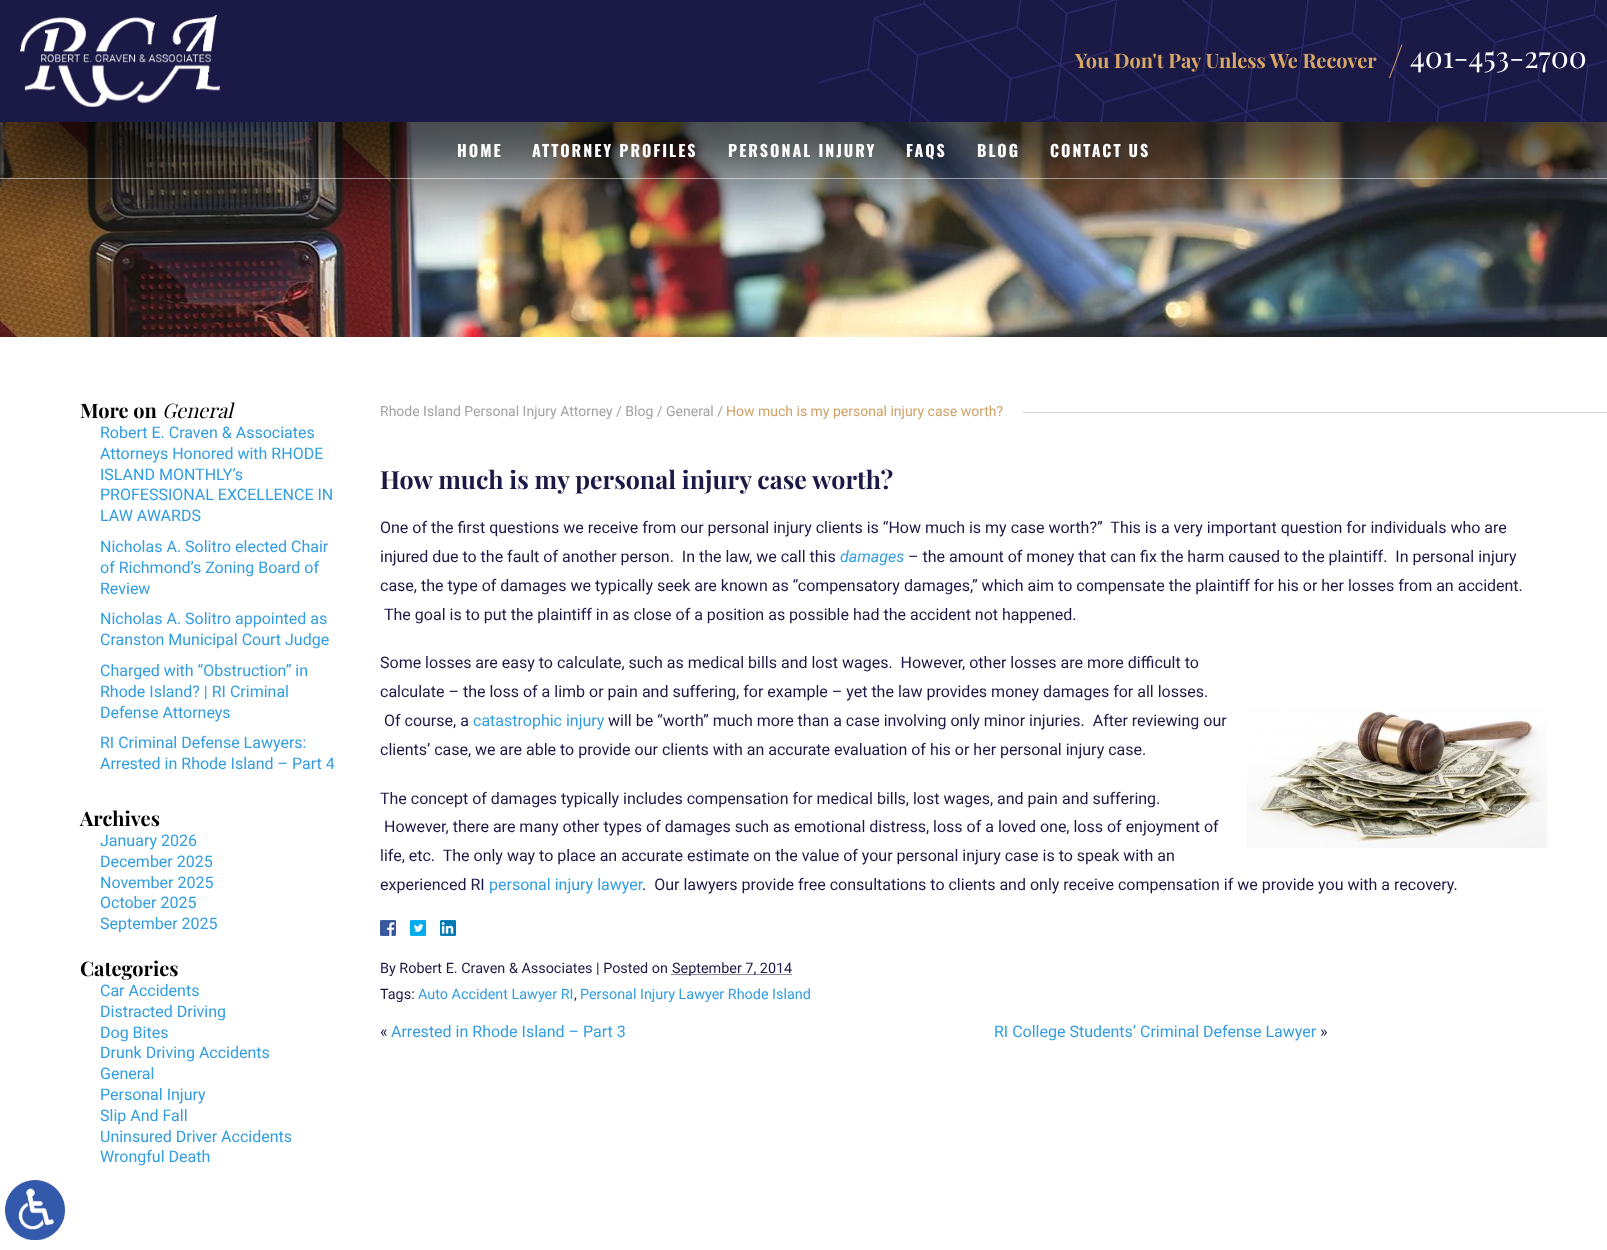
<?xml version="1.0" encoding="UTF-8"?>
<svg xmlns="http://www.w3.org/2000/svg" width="1607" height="1250">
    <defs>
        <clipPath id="clip1"><rect x="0" y="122" width="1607" height="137"/></clipPath>
        <filter id="blur1" x="-50%" y="-200%" width="200%" height="500%"><feGaussianBlur stdDeviation="40"/></filter>
    </defs>
    <rect width="100%" height="100%" fill="#FFFFFF"/>
    <rect x="0" y="0" width="818" height="122" fill="#1B1946"/>
    <image x="818" y="0" width="789" height="122" href="img_01.png"/>
    <image x="0" y="122" width="1607" height="215" href="img_03.png"/>
    <g clip-path="url(#clip1)">
        <rect x="0" y="60" width="1607" height="122" fill="#000000" fill-opacity="0.75" filter="url(#blur1)"/>
    </g>
    <image x="20" y="15" width="200" height="92" href="img_02.png"/>
    <text x="1075" y="68" font-family="Playfair Display" font-size="20" font-weight="700" fill="#D8A766">You Don't Pay Unless We Recover</text>
    <path d="M 1401.5 44.5 H 1402.5 L 1390 78 H 1389 Z" fill="#D8A766"/>
    <text x="1410" y="68" font-family="Playfair Display" font-size="30" fill="#FFFFFF">401-453-2700</text>
    <rect x="0" y="178" width="1607" height="1" fill="#FFFFFF" fill-opacity="0.5"/>
    <text x="457" y="157" font-family="Oswald" font-size="16" font-weight="700" letter-spacing="2" fill="#FFFFFF">HOME</text>
    <text x="532" y="157" font-family="Oswald" font-size="16" font-weight="700" letter-spacing="2" fill="#FFFFFF">ATTORNEY PROFILES</text>
    <text x="728" y="157" font-family="Oswald" font-size="16" font-weight="700" letter-spacing="2" fill="#FFFFFF">PERSONAL INJURY</text>
    <text x="906" y="157" font-family="Oswald" font-size="16" font-weight="700" letter-spacing="2" fill="#FFFFFF">FAQS</text>
    <text x="977" y="157" font-family="Oswald" font-size="16" font-weight="700" letter-spacing="2" fill="#FFFFFF">BLOG</text>
    <text x="1050" y="157" font-family="Oswald" font-size="16" font-weight="700" letter-spacing="2" fill="#FFFFFF">CONTACT US</text>
    <text x="80" y="418" font-family="Playfair Display" font-size="20" font-weight="700" fill="#000000">More on</text>
    <text x="162" y="418" font-family="Playfair Display" font-size="20" font-style="italic" fill="#000000">General</text>
    <text font-family="Roboto" font-size="16" fill="#329DE1">
        <tspan x="100" y="438">Robert E. Craven &amp; Associates</tspan>
        <tspan x="100" y="459">Attorneys Honored with RHODE</tspan>
        <tspan x="100" y="480">ISLAND MONTHLY’s</tspan>
        <tspan x="100" y="500">PROFESSIONAL EXCELLENCE IN</tspan>
        <tspan x="100" y="521">LAW AWARDS</tspan>
        <tspan x="100" y="552">Nicholas A. Solitro elected Chair</tspan>
        <tspan x="100" y="573">of Richmond’s Zoning Board of</tspan>
        <tspan x="100" y="594">Review</tspan>
        <tspan x="100" y="624">Nicholas A. Solitro appointed as</tspan>
        <tspan x="100" y="645">Cranston Municipal Court Judge</tspan>
        <tspan x="100" y="676">Charged with “Obstruction” in</tspan>
        <tspan x="100" y="697">Rhode Island? | RI Criminal</tspan>
        <tspan x="100" y="718">Defense Attorneys</tspan>
        <tspan x="100" y="748">RI Criminal Defense Lawyers:</tspan>
        <tspan x="100" y="769">Arrested in Rhode Island – Part 4</tspan>
    </text>
    <text x="80" y="826" font-family="Playfair Display" font-size="20" font-weight="700" fill="#000000">Archives</text>
    <text font-family="Roboto" font-size="16" fill="#329DE1">
        <tspan x="100" y="846">January 2026</tspan>
        <tspan x="100" y="867">December 2025</tspan>
        <tspan x="100" y="888">November 2025</tspan>
        <tspan x="100" y="908">October 2025</tspan>
        <tspan x="100" y="929">September 2025</tspan>
    </text>
    <text x="80" y="976" font-family="Playfair Display" font-size="20" font-weight="700" fill="#000000">Categories</text>
    <text font-family="Roboto" font-size="16" fill="#329DE1">
        <tspan x="100" y="996">Car Accidents</tspan>
        <tspan x="100" y="1017">Distracted Driving</tspan>
        <tspan x="100" y="1038">Dog Bites</tspan>
        <tspan x="100" y="1058">Drunk Driving Accidents</tspan>
        <tspan x="100" y="1079">General</tspan>
        <tspan x="100" y="1100">Personal Injury</tspan>
        <tspan x="100" y="1121">Slip And Fall</tspan>
        <tspan x="100" y="1142">Uninsured Driver Accidents</tspan>
        <tspan x="100" y="1162">Wrongful Death</tspan>
    </text>
    <text x="380" y="416" font-family="Roboto" font-size="14" fill="#A2A2A2">Rhode Island Personal Injury Attorney / Blog / General /</text>
    <text x="726" y="416" font-family="Roboto" font-size="14" fill="#CFA167">How much is my personal injury case worth?</text>
    <rect x="1023" y="412" width="584" height="1" fill="#D6D6D6"/>
    <text x="380" y="489" font-family="Playfair Display" font-size="25" font-weight="700" fill="#1B1946">How much is my personal injury case worth?</text>
    <text font-family="Roboto" font-size="16" fill="#1B1946" xml:space="preserve"><tspan x="380" y="533">One of the first questions we receive from our personal injury clients is “How much is my case worth?”  This is a very important question for individuals who are</tspan><tspan x="380" y="562">injured due to the fault of another person.  In the law, we call this</tspan></text>
    <text x="840" y="562" font-family="Roboto" font-size="16" font-style="italic" fill="#329DE1">damages</text>
    <text x="908" y="562" font-family="Roboto" font-size="16" fill="#1B1946" xml:space="preserve">– the amount of money that can fix the harm caused to the plaintiff.  In personal injury</text>
    <text x="380" y="591" font-family="Roboto" font-size="16" fill="#1B1946">case, the type of damages we typically seek are known as “compensatory damages,” which aim to compensate the plaintiff for his or her losses from an accident.</text>
    <text x="384" y="620" font-family="Roboto" font-size="16" fill="#1B1946">The goal is to put the plaintiff in as close of a position as possible had the accident not happened.</text>
    <text font-family="Roboto" font-size="16" fill="#1B1946" xml:space="preserve"><tspan x="380" y="668">Some losses are easy to calculate, such as medical bills and lost wages.  However, other losses are more difficult to</tspan><tspan x="380" y="697">calculate – the loss of a limb or pain and suffering, for example – yet the law provides money damages for all losses.</tspan></text>
    <text x="384" y="726" font-family="Roboto" font-size="16" fill="#1B1946">Of course, a</text>
    <text x="473" y="726" font-family="Roboto" font-size="16" fill="#329DE1">catastrophic injury</text>
    <text x="608" y="726" font-family="Roboto" font-size="16" fill="#1B1946" xml:space="preserve">will be “worth” much more than a case involving only minor injuries.  After reviewing our</text>
    <image x="1247" y="707" width="300" height="141" href="img_04.png"/>
    <text x="380" y="755" font-family="Roboto" font-size="16" fill="#1B1946">clients’ case, we are able to provide our clients with an accurate evaluation of his or her personal injury case.</text>
    <text x="380" y="804" font-family="Roboto" font-size="16" fill="#1B1946">The concept of damages typically includes compensation for medical bills, lost wages, and pain and suffering.</text>
    <text x="384" y="832" font-family="Roboto" font-size="16" fill="#1B1946">However, there are many other types of damages such as emotional distress, loss of a loved one, loss of enjoyment of</text>
    <text font-family="Roboto" font-size="16" fill="#1B1946" xml:space="preserve"><tspan x="380" y="861">life, etc.  The only way to place an accurate estimate on the value of your personal injury case is to speak with an</tspan><tspan x="380" y="890">experienced RI</tspan></text>
    <text x="489" y="890" font-family="Roboto" font-size="16" fill="#329DE1">personal injury lawyer</text>
    <text x="642" y="890" font-family="Roboto" font-size="16" fill="#1B1946" xml:space="preserve">.  Our lawyers provide free consultations to clients and only receive compensation if we provide you with a recovery.</text>
    <image x="380" y="920" width="16" height="16" href="img_05.png"/>
    <image x="410" y="920" width="16" height="16" href="img_06.png"/>
    <image x="440" y="920" width="16" height="16" href="img_07.png"/>
    <text x="380" y="973" font-family="Roboto" font-size="14.4" fill="#1B1946">By Robert E. Craven &amp; Associates | Posted on</text>
    <path d="M 671.5 974.5 H 792" fill="none" stroke="#1B1946" stroke-dasharray="1 1"/>
    <text x="672" y="973" font-family="Roboto" font-size="14.4" fill="#1B1946">September 7, 2014</text>
    <text x="380" y="999" font-family="Roboto" font-size="14.4" fill="#1B1946">Tags:</text>
    <text x="418" y="999" font-family="Roboto" font-size="14.4" fill="#329DE1">Auto Accident Lawyer RI</text>
    <text x="574" y="999" font-family="Roboto" font-size="14.4" fill="#1B1946">,</text>
    <text x="580" y="999" font-family="Roboto" font-size="14.4" fill="#329DE1">Personal Injury Lawyer Rhode Island</text>
    <text x="380" y="1037" font-family="Roboto" font-size="16" fill="#1B1946">«</text>
    <text x="391" y="1037" font-family="Roboto" font-size="16" fill="#329DE1">Arrested in Rhode Island – Part 3</text>
    <text x="994" y="1037" font-family="Roboto" font-size="16" fill="#329DE1">RI College Students’ Criminal Defense Lawyer</text>
    <text x="1320" y="1037" font-family="Roboto" font-size="16" fill="#1B1946">»</text>
    <image x="5" y="1180" width="60" height="60" href="img_08.png"/>
</svg>
